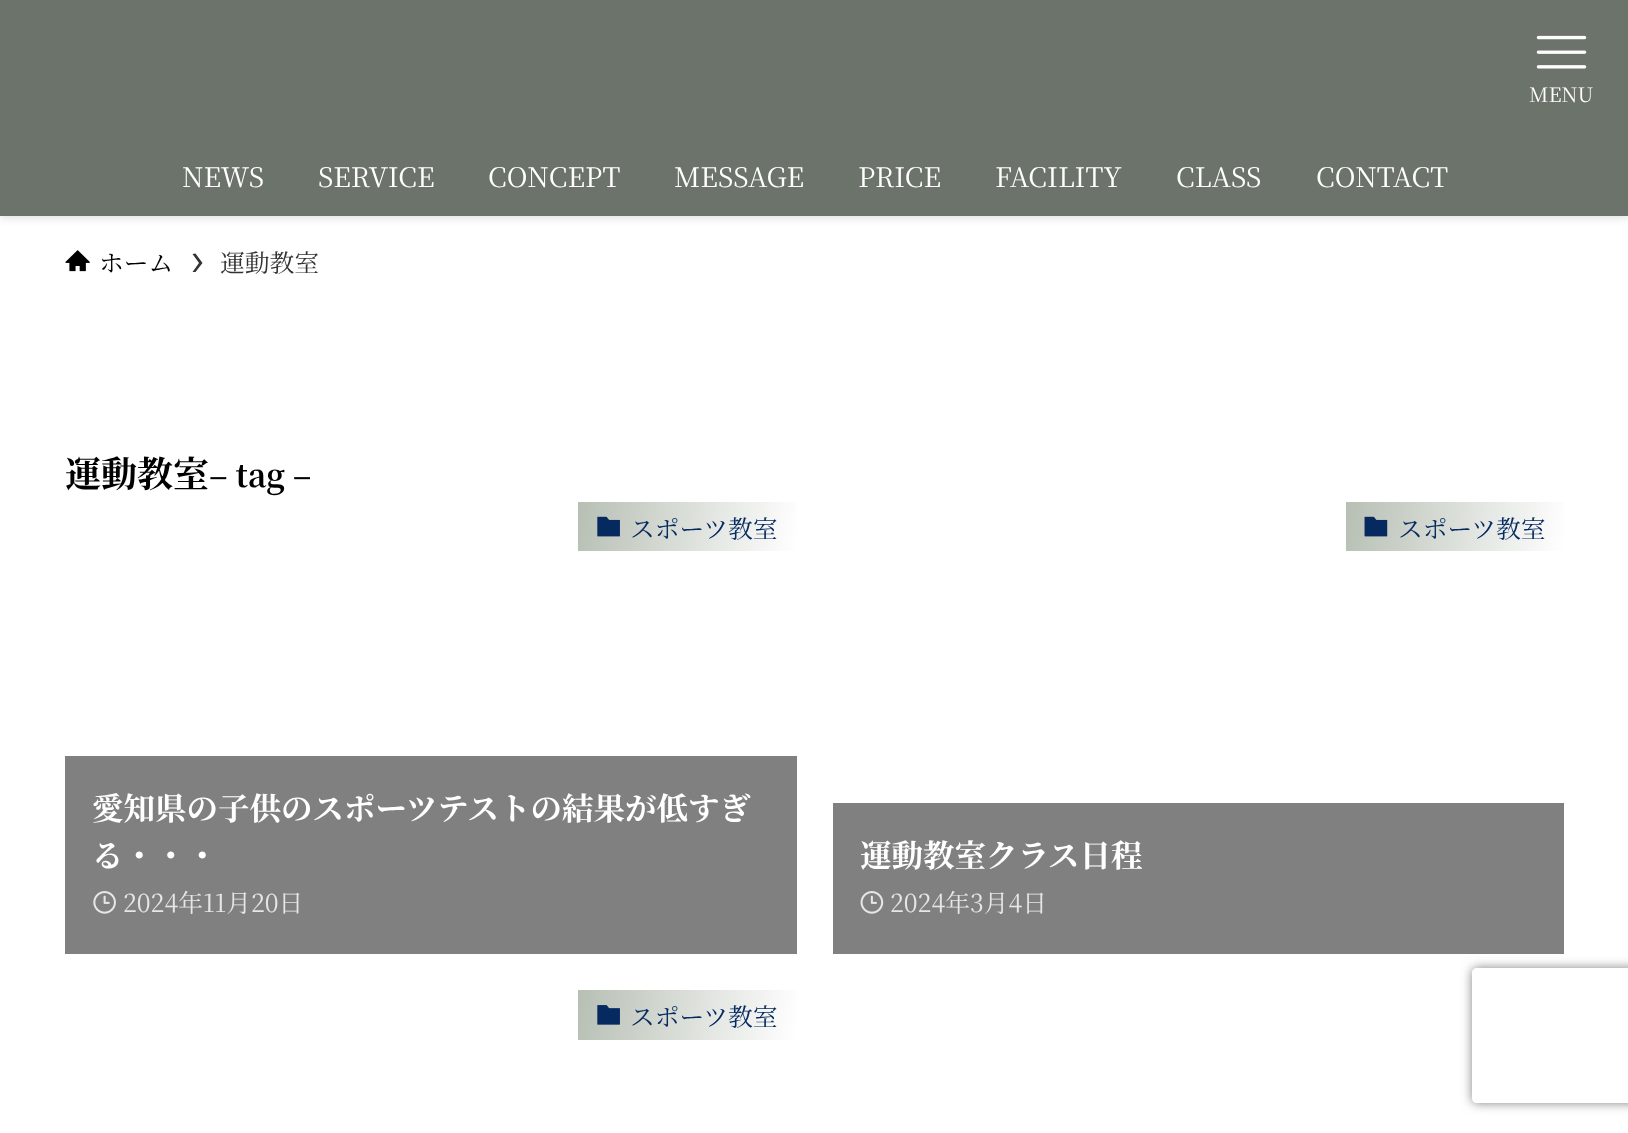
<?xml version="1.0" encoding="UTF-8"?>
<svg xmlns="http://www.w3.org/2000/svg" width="1628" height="1133">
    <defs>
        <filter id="blur1" x="-50%" y="-200%" width="200%" height="500%"><feGaussianBlur stdDeviation="4.5"/></filter>
        <linearGradient id="g1" gradientUnits="userSpaceOnUse" x1="577" y1="507" x2="797" y2="546"><stop offset="0" stop-color="#B7BFB4"/><stop offset="1" stop-color="#FFFFFF"/></linearGradient>
        <linearGradient id="g2" gradientUnits="userSpaceOnUse" x1="1345" y1="507" x2="1565" y2="546"><stop offset="0" stop-color="#B7BFB4"/><stop offset="1" stop-color="#FFFFFF"/></linearGradient>
        <clipPath id="clip1"><path d="M 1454 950 H 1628 V 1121 H 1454 Z M 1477 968 H 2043 C 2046 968 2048 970 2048 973 V 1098 C 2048 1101 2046 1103 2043 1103 H 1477 C 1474 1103 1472 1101 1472 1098 V 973 C 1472 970 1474 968 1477 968 Z" clip-rule="evenodd"/></clipPath>
        <filter id="blur2" x="-50%" y="-200%" width="200%" height="500%"><feGaussianBlur stdDeviation="5.5"/></filter>
        <linearGradient id="g3" gradientUnits="userSpaceOnUse" x1="577" y1="995" x2="797" y2="1034"><stop offset="0" stop-color="#B7BFB4"/><stop offset="1" stop-color="#FFFFFF"/></linearGradient>
    </defs>
    <rect width="100%" height="100%" fill="#FFFFFF"/>
    <rect x="0" y="2" width="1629" height="216" fill="#000000" fill-opacity="0.12" filter="url(#blur1)"/>
    <rect x="0" y="0" width="1628" height="216" fill="#6C736A"/>
    <image x="1536" y="35" width="51" height="34" href="img_01.png"/>
    <text x="1529" y="102" font-family="Noto Serif JP" font-size="20" fill="#FFFFFF">MENU</text>
    <text x="182" y="187" font-family="Noto Serif JP" font-size="27" fill="#FFFFFF">NEWS</text>
    <text x="318" y="187" font-family="Noto Serif JP" font-size="27" fill="#FFFFFF">SERVICE</text>
    <text x="488" y="187" font-family="Noto Serif JP" font-size="27" fill="#FFFFFF">CONCEPT</text>
    <text x="674" y="187" font-family="Noto Serif JP" font-size="27" fill="#FFFFFF">MESSAGE</text>
    <text x="858" y="187" font-family="Noto Serif JP" font-size="27" fill="#FFFFFF">PRICE</text>
    <text x="995" y="187" font-family="Noto Serif JP" font-size="27" fill="#FFFFFF">FACILITY</text>
    <text x="1176" y="187" font-family="Noto Serif JP" font-size="27" fill="#FFFFFF">CLASS</text>
    <text x="1316" y="187" font-family="Noto Serif JP" font-size="27" fill="#FFFFFF">CONTACT</text>
    <image x="65" y="250" width="25" height="22" href="img_02.png"/>
    <text x="99" y="272" font-family="Noto Serif JP" font-size="24.75" fill="#000000">ホーム</text>
    <path d="M 195.5 253.5 L 192.5 254 L 199 263 L 192.5 272 H 195.5 L 202.5 263 Z" fill="#333333"/>
    <text x="220" y="272" font-family="Noto Serif JP" font-size="24.75" fill="#333333">運動教室</text>
    <text x="65" y="487" font-family="Noto Serif JP" font-size="36" font-weight="700" fill="#000000">運動教室</text>
    <text x="209" y="487" font-family="Noto Serif JP" font-size="31.5" font-weight="700" fill="#000000">– tag –</text>
    <rect x="578" y="502" width="219" height="49" fill="url(#g1)"/>
    <image x="597" y="516" width="23" height="21" href="img_03.png"/>
    <text x="630" y="538" font-family="Noto Serif JP" font-size="24.75" fill="#062A60">スポーツ教室</text>
    <rect x="65" y="756" width="732" height="198" fill="#808080"/>
    <text font-family="Noto Serif JP" font-size="31.5" font-weight="700" fill="#FFFFFF">
        <tspan x="92" y="820">愛知県の子供のスポーツテストの結果が低すぎ</tspan>
        <tspan x="92" y="867">る・・・</tspan>
    </text>
    <image x="93" y="891" width="23" height="23" href="img_04.png"/>
    <text x="123" y="912" font-family="Noto Serif JP" font-size="24.75" fill="#E6E6E6">2024年11月20日</text>
    <rect x="1346" y="502" width="218" height="49" fill="url(#g2)"/>
    <image x="1364" y="516" width="24" height="21" href="img_05.png"/>
    <text x="1398" y="538" font-family="Noto Serif JP" font-size="24.75" fill="#062A60">スポーツ教室</text>
    <g clip-path="url(#clip1)">
        <rect x="1472" y="968" width="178" height="135" rx="5" fill="#808080" filter="url(#blur2)"/>
    </g>
    <rect x="833" y="803" width="731" height="151" fill="#808080"/>
    <text x="860" y="867" font-family="Noto Serif JP" font-size="31.5" font-weight="700" fill="#FFFFFF">運動教室クラス日程</text>
    <image x="860" y="891" width="24" height="23" href="img_06.png"/>
    <text x="890" y="912" font-family="Noto Serif JP" font-size="24.75" fill="#E6E6E6">2024年3月4日</text>
    <rect x="578" y="990" width="219" height="50" fill="url(#g3)"/>
    <image x="597" y="1005" width="23" height="20" href="img_07.png"/>
    <text x="630" y="1026" font-family="Noto Serif JP" font-size="24.75" fill="#062A60">スポーツ教室</text>
</svg>
